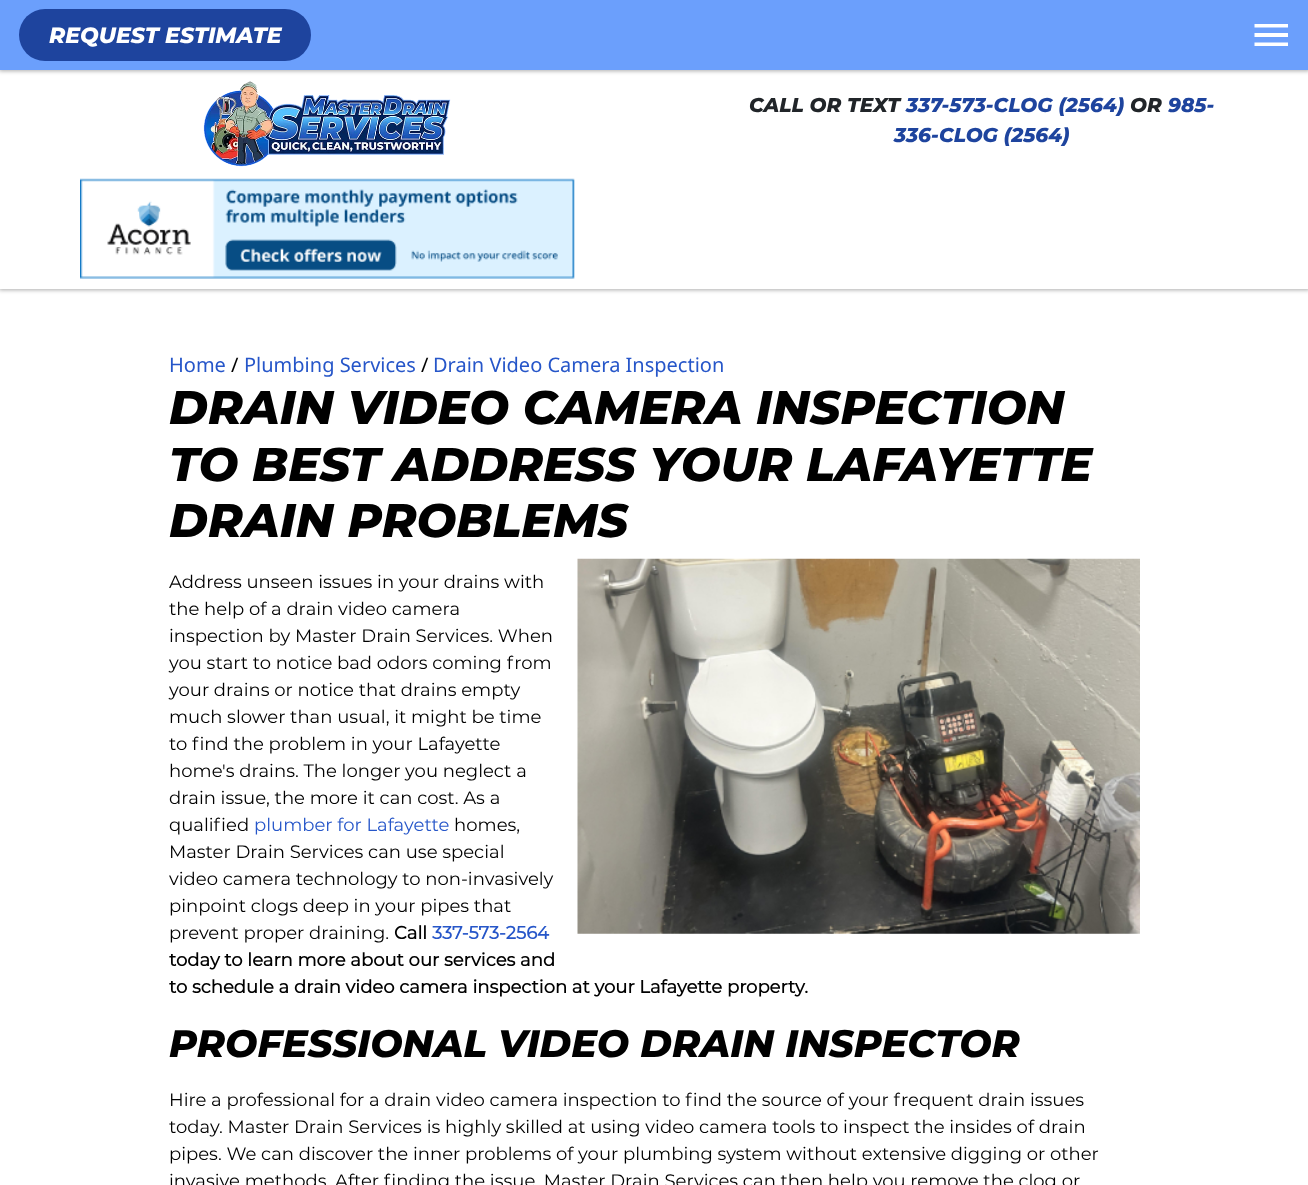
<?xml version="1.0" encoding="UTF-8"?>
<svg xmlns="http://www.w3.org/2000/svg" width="1308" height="1185">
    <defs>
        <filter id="blur1" x="-50%" y="-200%" width="200%" height="500%"><feGaussianBlur stdDeviation="2"/></filter>
    </defs>
    <rect width="100%" height="100%" fill="#FFFFFF"/>
    <rect x="-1" y="-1" width="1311" height="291" fill="#000000" fill-opacity="0.33" filter="url(#blur1)"/>
    <rect x="0" y="70" width="1308" height="219" fill="#FFFFFF"/>
    <rect x="-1" y="-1" width="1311" height="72" fill="#000000" fill-opacity="0.33" filter="url(#blur1)"/>
    <rect x="0" y="0" width="1308" height="70" fill="#6B9FFC"/>
    <rect x="19" y="9" width="292" height="52" rx="26" fill="#1E449E"/>
    <text x="49" y="43" font-family="Montserrat" font-size="22" font-weight="800" font-style="italic" fill="#FFFFFF">REQUEST ESTIMATE</text>
    <path d="M 1254.5 46 H 1288 V 42.5 H 1254.5 Z M 1254.5 37 H 1288 V 33 H 1254.5 Z M 1254.5 24 V 27.5 H 1288 V 24 Z" fill="#FFFFFF"/>
    <image x="203" y="81" width="248" height="86" href="img_01.png"/>
    <text x="749" y="112" font-family="Montserrat" font-size="20" font-weight="800" font-style="italic" fill="#212529">CALL OR TEXT</text>
    <text x="906" y="112" font-family="Montserrat" font-size="20" font-weight="800" font-style="italic" fill="#1E449E">337-573-CLOG (2564)</text>
    <text x="1130" y="112" font-family="Montserrat" font-size="20" font-weight="800" font-style="italic" fill="#212529">OR</text>
    <text x="1168" y="112" font-family="Montserrat" font-size="20" font-weight="800" font-style="italic" fill="#1E449E">985-</text>
    <text x="894" y="142" font-family="Montserrat" font-size="20" font-weight="800" font-style="italic" fill="#1E449E">336-CLOG (2564)</text>
    <image x="80" y="178" width="495" height="101" href="img_02.png"/>
    <text x="169" y="372" font-family="Noto Sans" font-size="20" fill="#2656C9">Home</text>
    <text x="231" y="372" font-family="Noto Sans" font-size="20" fill="#000000">/</text>
    <text x="244" y="372" font-family="Noto Sans" font-size="20" fill="#2656C9">Plumbing Services</text>
    <text x="421" y="372" font-family="Noto Sans" font-size="20" fill="#000000">/</text>
    <text x="433" y="372" font-family="Noto Sans" font-size="20" fill="#2656C9">Drain Video Camera Inspection</text>
    <text font-family="Montserrat" font-size="47.1" font-weight="800" font-style="italic" fill="#000000">
        <tspan x="169" y="424">DRAIN VIDEO CAMERA INSPECTION</tspan>
        <tspan x="169" y="481">TO BEST ADDRESS YOUR LAFAYETTE</tspan>
        <tspan x="169" y="537">DRAIN PROBLEMS</tspan>
    </text>
    <text font-family="Montserrat" font-size="18" fill="#000000">
        <tspan x="169" y="588">Address unseen issues in your drains with</tspan>
        <tspan x="169" y="615">the help of a drain video camera</tspan>
        <tspan x="169" y="642">inspection by Master Drain Services. When</tspan>
        <tspan x="169" y="669">you start to notice bad odors coming from</tspan>
        <tspan x="169" y="696">your drains or notice that drains empty</tspan>
        <tspan x="169" y="723">much slower than usual, it might be time</tspan>
        <tspan x="169" y="750">to find the problem in your Lafayette</tspan>
        <tspan x="169" y="777">home's drains. The longer you neglect a</tspan>
        <tspan x="169" y="804">drain issue, the more it can cost. As a</tspan>
        <tspan x="169" y="831">qualified</tspan>
    </text>
    <text x="254" y="831" font-family="Montserrat" font-size="18" fill="#2656C9">plumber for Lafayette</text>
    <text x="454" y="831" font-family="Montserrat" font-size="18" fill="#000000">homes,</text>
    <text font-family="Montserrat" font-size="18" fill="#000000">
        <tspan x="169" y="858">Master Drain Services can use special</tspan>
        <tspan x="169" y="885">video camera technology to non-invasively</tspan>
        <tspan x="169" y="912">pinpoint clogs deep in your pipes that</tspan>
        <tspan x="169" y="939">prevent proper draining.</tspan>
    </text>
    <text x="394" y="939" font-family="Montserrat" font-size="18" font-weight="700" fill="#000000">Call</text>
    <text x="432" y="939" font-family="Montserrat" font-size="18" font-weight="700" fill="#2656C9">337-573-2564</text>
    <text font-family="Montserrat" font-size="18" font-weight="700" fill="#000000">
        <tspan x="169" y="966">today to learn more about our services and</tspan>
        <tspan x="169" y="993">to schedule a drain video camera inspection at your Lafayette property.</tspan>
    </text>
    <image x="577" y="558" width="563" height="376" href="img_03.png"/>
    <text x="169" y="1057" font-family="Montserrat" font-size="38.25" font-weight="800" font-style="italic" fill="#000000">PROFESSIONAL VIDEO DRAIN INSPECTOR</text>
    <text font-family="Montserrat" font-size="18" fill="#000000">
        <tspan x="169" y="1106">Hire a professional for a drain video camera inspection to find the source of your frequent drain issues</tspan>
        <tspan x="169" y="1133">today. Master Drain Services is highly skilled at using video camera tools to inspect the insides of drain</tspan>
        <tspan x="169" y="1160">pipes. We can discover the inner problems of your plumbing system without extensive digging or other</tspan>
        <tspan x="169" y="1187">invasive methods. After finding the issue, Master Drain Services can then help you remove the clog or</tspan>
    </text>
</svg>
